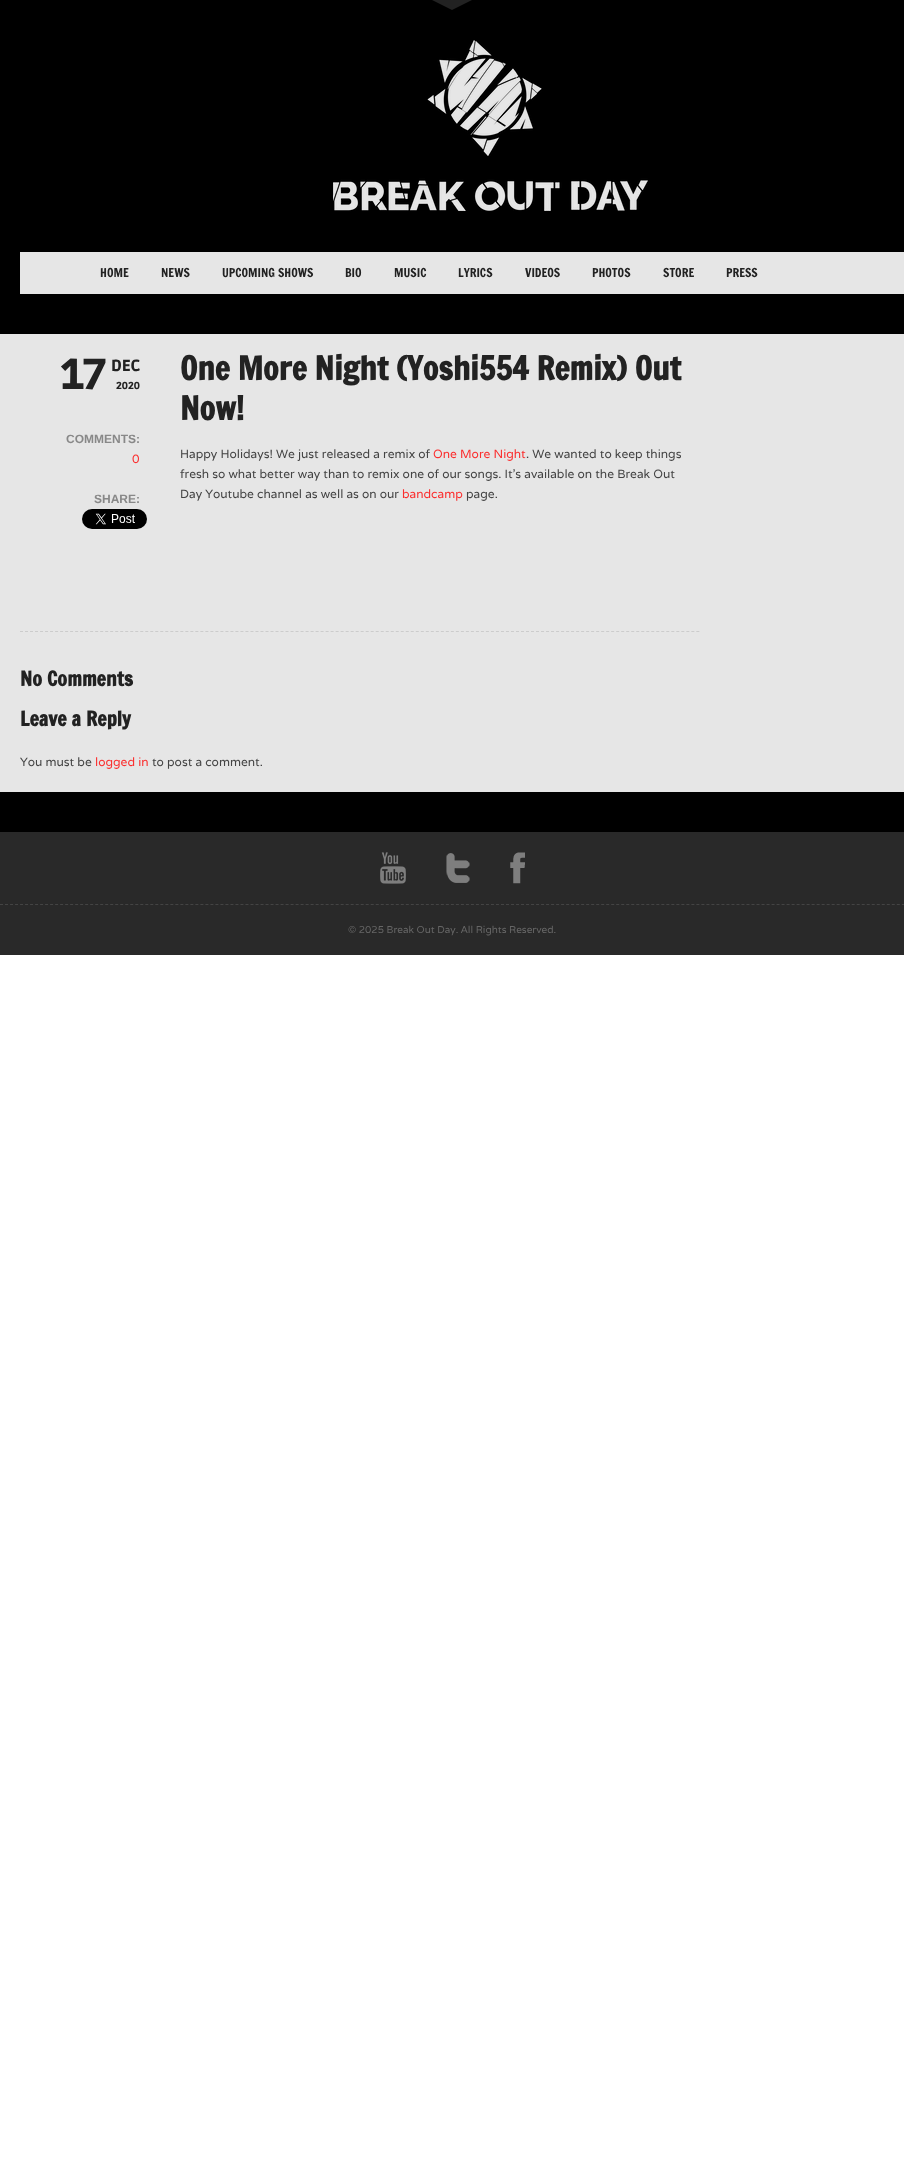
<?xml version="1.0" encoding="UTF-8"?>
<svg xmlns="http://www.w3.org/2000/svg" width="904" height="2170">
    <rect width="100%" height="100%" fill="#FFFFFF"/>
    <rect x="0" y="0" width="904" height="832" fill="#000000"/>
    <path d="M 432 0 H 472 L 452 10 Z" fill="#222222"/>
    <image x="333" y="40" width="315" height="171" href="img_01.png"/>
    <rect x="20" y="252" width="884" height="42" fill="#E6E6E6"/>
    <text x="100" y="277" font-family="Francois One" font-size="12" fill="#222222">HOME</text>
    <text x="161" y="277" font-family="Francois One" font-size="12" fill="#222222">NEWS</text>
    <text x="222" y="277" font-family="Francois One" font-size="12" fill="#222222">UPCOMING SHOWS</text>
    <text x="345" y="277" font-family="Francois One" font-size="12" fill="#222222">BIO</text>
    <text x="394" y="277" font-family="Francois One" font-size="12" fill="#222222">MUSIC</text>
    <text x="458" y="277" font-family="Francois One" font-size="12" fill="#222222">LYRICS</text>
    <text x="525" y="277" font-family="Francois One" font-size="12" fill="#222222">VIDEOS</text>
    <text x="592" y="277" font-family="Francois One" font-size="12" fill="#222222">PHOTOS</text>
    <text x="663" y="277" font-family="Francois One" font-size="12" fill="#222222">STORE</text>
    <text x="726" y="277" font-family="Francois One" font-size="12" fill="#222222">PRESS</text>
    <rect x="0" y="334" width="904" height="458" fill="#E6E6E6"/>
    <text x="60" y="389" font-family="Ruda" font-size="43" font-weight="900" fill="#222222">17</text>
    <text x="111" y="371" font-family="Ruda" font-size="16" font-weight="900" fill="#222222">DEC</text>
    <text x="116" y="389" font-family="Ruda" font-size="10" font-weight="900" fill="#222222">2020</text>
    <text x="66" y="443" font-family="Liberation Sans" font-size="12" font-weight="700" fill="#888888">COMMENTS:</text>
    <text x="132" y="463" font-family="Varela" font-size="12" fill="#FB2E2E">0</text>
    <text x="94" y="503" font-family="Liberation Sans" font-size="12" font-weight="700" fill="#888888">SHARE:</text>
    <image x="82" y="509" width="65" height="20" href="img_02.png"/>
    <text font-family="Francois One" font-size="32" font-weight="700" fill="#222222">
        <tspan x="180" y="380">One More Night (Yoshi554 Remix) Out</tspan>
        <tspan x="180" y="420">Now!</tspan>
    </text>
    <text x="180" y="458" font-family="Varela" font-size="12" fill="#444444">Happy Holidays! We just released a remix of</text>
    <text x="433" y="458" font-family="Varela" font-size="12" fill="#FB2E2E">One More Night</text>
    <text x="526" y="458" font-family="Varela" font-size="12" fill="#444444">. We wanted to keep things</text>
    <text font-family="Varela" font-size="12" fill="#444444">
        <tspan x="180" y="478">fresh so what better way than to remix one of our songs. It’s available on the Break Out</tspan>
        <tspan x="180" y="498">Day Youtube channel as well as on our</tspan>
    </text>
    <text x="402" y="498" font-family="Varela" font-size="12" fill="#FB2E2E">bandcamp</text>
    <text x="466" y="498" font-family="Varela" font-size="12" fill="#444444">page.</text>
    <path d="M 20 631.5 H 700" fill="none" stroke="#CCCCCC" stroke-dasharray="3 2.01"/>
    <text x="20" y="686" font-family="Francois One" font-size="20" font-weight="700" fill="#222222">No Comments</text>
    <text x="20" y="726" font-family="Francois One" font-size="20" font-weight="700" fill="#222222">Leave a Reply</text>
    <text x="20" y="766" font-family="Varela" font-size="12" fill="#444444">You must be</text>
    <text x="95" y="766" font-family="Varela" font-size="12" fill="#FB2E2E">logged in</text>
    <text x="152" y="766" font-family="Varela" font-size="12" fill="#444444">to post a comment.</text>
    <rect x="0" y="832" width="904" height="123" fill="#292929"/>
    <path d="M 0 904.5 H 904" fill="none" stroke="#444444" stroke-dasharray="3 2.01"/>
    <image x="380" y="852" width="26" height="32" href="img_03.png"/>
    <image x="446" y="853" width="24" height="30" href="img_04.png"/>
    <image x="510" y="852" width="15" height="32" href="img_05.png"/>
    <text x="348" y="933" font-family="Varela" font-size="10" fill="#666666">© 2025 Break Out Day. All Rights Reserved.</text>
</svg>
